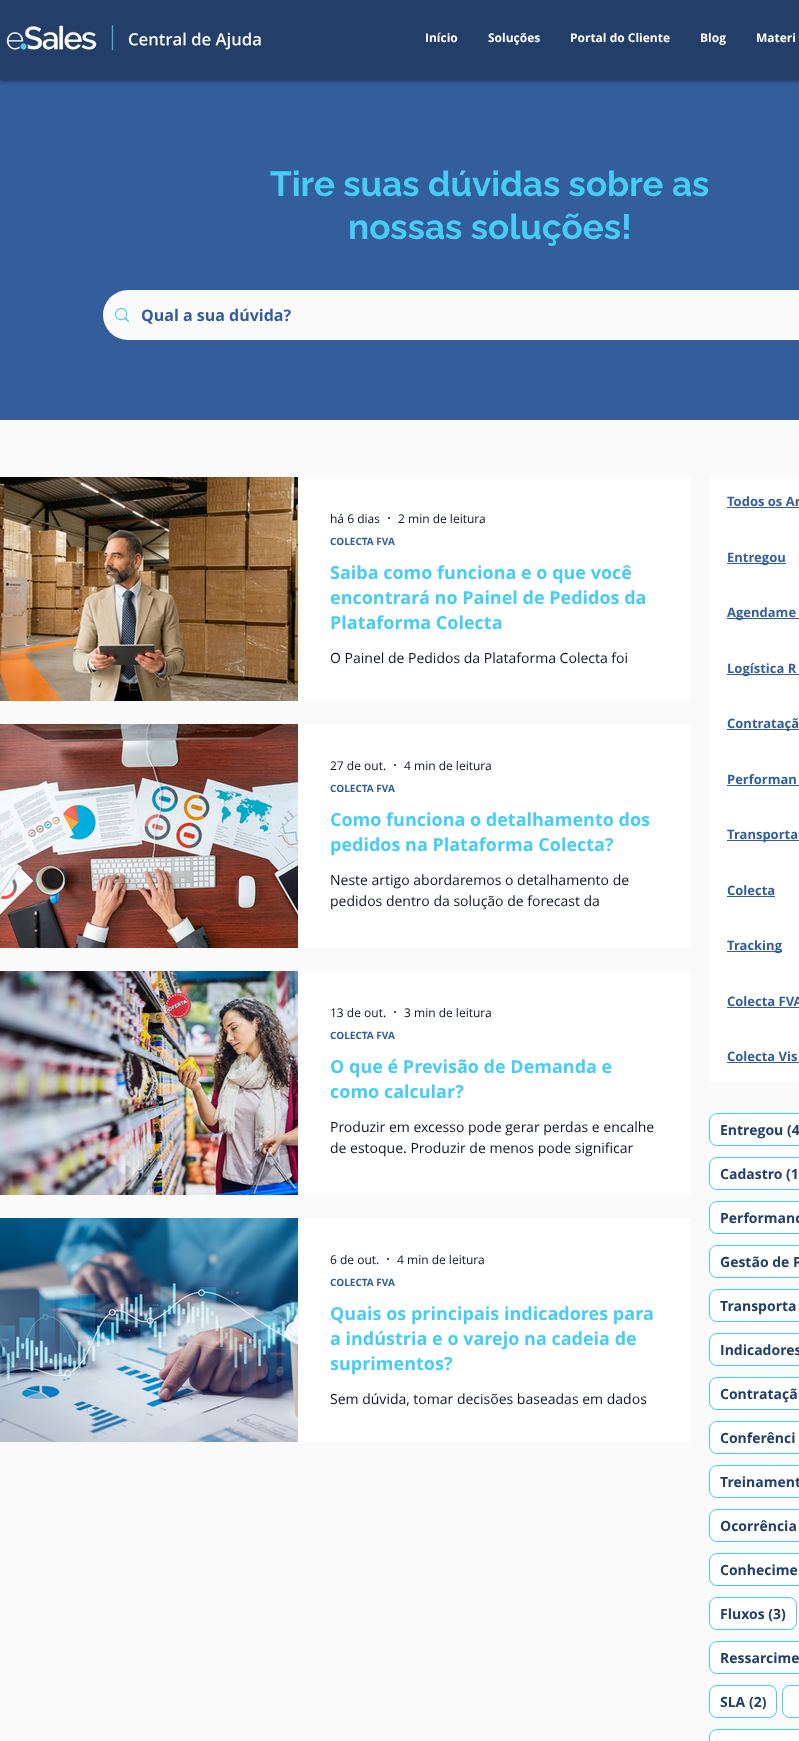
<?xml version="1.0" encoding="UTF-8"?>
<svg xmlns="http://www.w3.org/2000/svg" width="799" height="1741">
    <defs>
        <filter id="blur1" x="-50%" y="-200%" width="200%" height="500%"><feGaussianBlur stdDeviation="2.5"/></filter>
    </defs>
    <rect width="100%" height="100%" fill="#FAFAFA"/>
    <rect x="0" y="80" width="799" height="340" fill="#345D9C"/>
    <rect x="0" y="0" width="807" height="80" fill="#000000" fill-opacity="0.7" filter="url(#blur1)"/>
    <rect x="0" y="0" width="799" height="80" fill="#233E68"/>
    <image x="6" y="25" width="256" height="26" href="img_01.png"/>
    <text x="425" y="42" font-family="Open Sans" font-size="12" font-weight="700" fill="#FFFFFF">Início</text>
    <text x="488" y="42" font-family="Open Sans" font-size="12" font-weight="700" fill="#FFFFFF">Soluções</text>
    <text x="570" y="42" font-family="Open Sans" font-size="12" font-weight="700" fill="#FFFFFF">Portal do Cliente</text>
    <text x="700" y="42" font-family="Open Sans" font-size="12" font-weight="700" fill="#FFFFFF">Blog</text>
    <text x="756" y="42" font-family="Open Sans" font-size="12" font-weight="700" fill="#FFFFFF">Materi</text>
    <text x="270" y="196" font-family="Raleway" font-size="35" font-weight="700" fill="#47CDF5">Tire suas dúvidas sobre as</text>
    <text x="348" y="239" font-family="Raleway" font-size="35" font-weight="700" fill="#47CDF5">nossas soluções!</text>
    <rect x="103" y="290" width="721" height="50" rx="25" fill="#FAFAFA"/>
    <image x="115" y="308" width="14" height="14" href="img_02.png"/>
    <text x="141" y="321" font-family="Open Sans" font-size="16" font-weight="700" fill="#345D9C">Qual a sua dúvida?</text>
    <image x="0" y="477" width="298" height="224" href="img_03.png"/>
    <rect x="298" y="477" width="392" height="224" fill="#FFFFFF"/>
    <text x="330" y="523" font-family="Open Sans" font-size="12" fill="#0C1321">há 6 dias</text>
    <circle cx="389" cy="518" r="1" fill="#0C1321"/>
    <text x="398" y="523" font-family="Open Sans" font-size="12" fill="#0C1321">2 min de leitura</text>
    <text x="330" y="545" font-family="Open Sans" font-size="10" font-weight="700" fill="#345D9C">COLECTA FVA</text>
    <text font-family="Open Sans" font-size="18" font-weight="700" fill="#47CDF5">
        <tspan x="330" y="579">Saiba como funciona e o que você</tspan>
        <tspan x="330" y="604">encontrará no Painel de Pedidos da</tspan>
        <tspan x="330" y="629">Plataforma Colecta</tspan>
    </text>
    <text x="330" y="663" font-family="Open Sans" font-size="14" fill="#0C1321">O Painel de Pedidos da Plataforma Colecta foi</text>
    <image x="0" y="724" width="298" height="224" href="img_04.png"/>
    <rect x="298" y="724" width="392" height="224" fill="#FFFFFF"/>
    <text x="330" y="770" font-family="Open Sans" font-size="12" fill="#0C1321">27 de out.</text>
    <circle cx="395" cy="765" r="1" fill="#0C1321"/>
    <text x="404" y="770" font-family="Open Sans" font-size="12" fill="#0C1321">4 min de leitura</text>
    <text x="330" y="792" font-family="Open Sans" font-size="10" font-weight="700" fill="#345D9C">COLECTA FVA</text>
    <text font-family="Open Sans" font-size="18" font-weight="700" fill="#47CDF5">
        <tspan x="330" y="826">Como funciona o detalhamento dos</tspan>
        <tspan x="330" y="851">pedidos na Plataforma Colecta?</tspan>
    </text>
    <text font-family="Open Sans" font-size="14" fill="#0C1321">
        <tspan x="330" y="885">Neste artigo abordaremos o detalhamento de</tspan>
        <tspan x="330" y="906">pedidos dentro da solução de forecast da</tspan>
    </text>
    <image x="0" y="971" width="298" height="224" href="img_05.png"/>
    <rect x="298" y="971" width="392" height="224" fill="#FFFFFF"/>
    <text x="330" y="1017" font-family="Open Sans" font-size="12" fill="#0C1321">13 de out.</text>
    <circle cx="395" cy="1012" r="1" fill="#0C1321"/>
    <text x="404" y="1017" font-family="Open Sans" font-size="12" fill="#0C1321">3 min de leitura</text>
    <text x="330" y="1039" font-family="Open Sans" font-size="10" font-weight="700" fill="#345D9C">COLECTA FVA</text>
    <text font-family="Open Sans" font-size="18" font-weight="700" fill="#47CDF5">
        <tspan x="330" y="1073">O que é Previsão de Demanda e</tspan>
        <tspan x="330" y="1098">como calcular?</tspan>
    </text>
    <text font-family="Open Sans" font-size="14" fill="#0C1321">
        <tspan x="330" y="1132">Produzir em excesso pode gerar perdas e encalhe</tspan>
        <tspan x="330" y="1153">de estoque. Produzir de menos pode significar</tspan>
    </text>
    <image x="0" y="1218" width="298" height="224" href="img_06.png"/>
    <rect x="298" y="1218" width="392" height="224" fill="#FFFFFF"/>
    <text x="330" y="1264" font-family="Open Sans" font-size="12" fill="#0C1321">6 de out.</text>
    <circle cx="388" cy="1259" r="1" fill="#0C1321"/>
    <text x="397" y="1264" font-family="Open Sans" font-size="12" fill="#0C1321">4 min de leitura</text>
    <text x="330" y="1286" font-family="Open Sans" font-size="10" font-weight="700" fill="#345D9C">COLECTA FVA</text>
    <text font-family="Open Sans" font-size="18" font-weight="700" fill="#47CDF5">
        <tspan x="330" y="1320">Quais os principais indicadores para</tspan>
        <tspan x="330" y="1345">a indústria e o varejo na cadeia de</tspan>
        <tspan x="330" y="1370">suprimentos?</tspan>
    </text>
    <text x="330" y="1404" font-family="Open Sans" font-size="14" fill="#0C1321">Sem dúvida, tomar decisões baseadas em dados</text>
    <rect x="709" y="477" width="90" height="605" fill="#FFFFFF"/>
    <text x="727" y="506" font-family="Open Sans" font-size="13" font-weight="700" fill="#345D9C">Todos os Ar</text>
    <rect x="727" y="507" width="72" height="1" fill="#345D9C"/>
    <rect x="727" y="563" width="59" height="1" fill="#345D9C"/>
    <text x="727" y="562" font-family="Open Sans" font-size="13" font-weight="700" fill="#345D9C">Entregou</text>
    <rect x="727" y="618" width="72" height="1" fill="#345D9C"/>
    <text x="727" y="617" font-family="Open Sans" font-size="13" font-weight="700" fill="#345D9C">Agendame</text>
    <rect x="727" y="674" width="72" height="1" fill="#345D9C"/>
    <text x="727" y="673" font-family="Open Sans" font-size="13" font-weight="700" fill="#345D9C">Logística R</text>
    <rect x="727" y="729" width="72" height="1" fill="#345D9C"/>
    <text x="727" y="728" font-family="Open Sans" font-size="13" font-weight="700" fill="#345D9C">Contrataçã</text>
    <text x="727" y="784" font-family="Open Sans" font-size="13" font-weight="700" fill="#345D9C">Performan</text>
    <rect x="727" y="785" width="72" height="1" fill="#345D9C"/>
    <rect x="727" y="840" width="72" height="1" fill="#345D9C"/>
    <text x="727" y="839" font-family="Open Sans" font-size="13" font-weight="700" fill="#345D9C">Transporta</text>
    <text x="727" y="895" font-family="Open Sans" font-size="13" font-weight="700" fill="#345D9C">Colecta</text>
    <rect x="727" y="896" width="48" height="1" fill="#345D9C"/>
    <rect x="727" y="951" width="55" height="1" fill="#345D9C"/>
    <text x="727" y="950" font-family="Open Sans" font-size="13" font-weight="700" fill="#345D9C">Tracking</text>
    <text x="727" y="1006" font-family="Open Sans" font-size="13" font-weight="700" fill="#345D9C">Colecta FVA</text>
    <rect x="727" y="1007" width="72" height="1" fill="#345D9C"/>
    <text x="727" y="1061" font-family="Open Sans" font-size="13" font-weight="700" fill="#345D9C">Colecta Vis</text>
    <rect x="727" y="1062" width="72" height="1" fill="#345D9C"/>
    <rect x="709.5" y="1113.5" width="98" height="32" rx="7.5" fill="#FFFFFF" stroke="#48CCF2"/>
    <text x="720" y="1135" font-family="Open Sans" font-size="14" font-weight="700" fill="#233E68">Entregou (4</text>
    <rect x="709.5" y="1157.5" width="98" height="32" rx="7.5" fill="#FFFFFF" stroke="#48CCF2"/>
    <text x="720" y="1179" font-family="Open Sans" font-size="14" font-weight="700" fill="#233E68">Cadastro (1</text>
    <rect x="709.5" y="1201.5" width="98" height="32" rx="7.5" fill="#FFFFFF" stroke="#48CCF2"/>
    <text x="720" y="1223" font-family="Open Sans" font-size="14" font-weight="700" fill="#233E68">Performanc</text>
    <rect x="709.5" y="1245.5" width="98" height="32" rx="7.5" fill="#FFFFFF" stroke="#48CCF2"/>
    <text x="720" y="1267" font-family="Open Sans" font-size="14" font-weight="700" fill="#233E68">Gestão de P</text>
    <rect x="709.5" y="1289.5" width="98" height="32" rx="7.5" fill="#FFFFFF" stroke="#48CCF2"/>
    <text x="720" y="1311" font-family="Open Sans" font-size="14" font-weight="700" fill="#233E68">Transporta</text>
    <rect x="709.5" y="1333.5" width="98" height="32" rx="7.5" fill="#FFFFFF" stroke="#48CCF2"/>
    <text x="720" y="1355" font-family="Open Sans" font-size="14" font-weight="700" fill="#233E68">Indicadores</text>
    <rect x="709.5" y="1377.5" width="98" height="32" rx="7.5" fill="#FFFFFF" stroke="#48CCF2"/>
    <text x="720" y="1399" font-family="Open Sans" font-size="14" font-weight="700" fill="#233E68">Contrataçã</text>
    <rect x="709.5" y="1421.5" width="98" height="32" rx="7.5" fill="#FFFFFF" stroke="#48CCF2"/>
    <text x="720" y="1443" font-family="Open Sans" font-size="14" font-weight="700" fill="#233E68">Conferênci</text>
    <rect x="709.5" y="1465.5" width="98" height="32" rx="7.5" fill="#FFFFFF" stroke="#48CCF2"/>
    <text x="720" y="1487" font-family="Open Sans" font-size="14" font-weight="700" fill="#233E68">Treinament</text>
    <rect x="709.5" y="1509.5" width="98" height="32" rx="7.5" fill="#FFFFFF" stroke="#48CCF2"/>
    <text x="720" y="1531" font-family="Open Sans" font-size="14" font-weight="700" fill="#233E68">Ocorrência</text>
    <rect x="709.5" y="1553.5" width="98" height="32" rx="7.5" fill="#FFFFFF" stroke="#48CCF2"/>
    <text x="720" y="1575" font-family="Open Sans" font-size="14" font-weight="700" fill="#233E68">Conhecime</text>
    <rect x="709.5" y="1597.5" width="87" height="32" rx="7.5" fill="#FFFFFF" stroke="#48CCF2"/>
    <text x="720" y="1619" font-family="Open Sans" font-size="14" font-weight="700" fill="#233E68">Fluxos (3)</text>
    <rect x="709.5" y="1641.5" width="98" height="32" rx="7.5" fill="#FFFFFF" stroke="#48CCF2"/>
    <text x="720" y="1663" font-family="Open Sans" font-size="14" font-weight="700" fill="#233E68">Ressarcime</text>
    <rect x="709.5" y="1685.5" width="67" height="32" rx="7.5" fill="#FFFFFF" stroke="#48CCF2"/>
    <text x="720" y="1707" font-family="Open Sans" font-size="14" font-weight="700" fill="#233E68">SLA (2)</text>
    <rect x="782.5" y="1685.5" width="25" height="32" rx="7.5" fill="#FFFFFF" stroke="#48CCF2"/>
    <rect x="709.5" y="1729.5" width="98" height="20" rx="7.5" fill="#FFFFFF" stroke="#48CCF2"/>
</svg>
